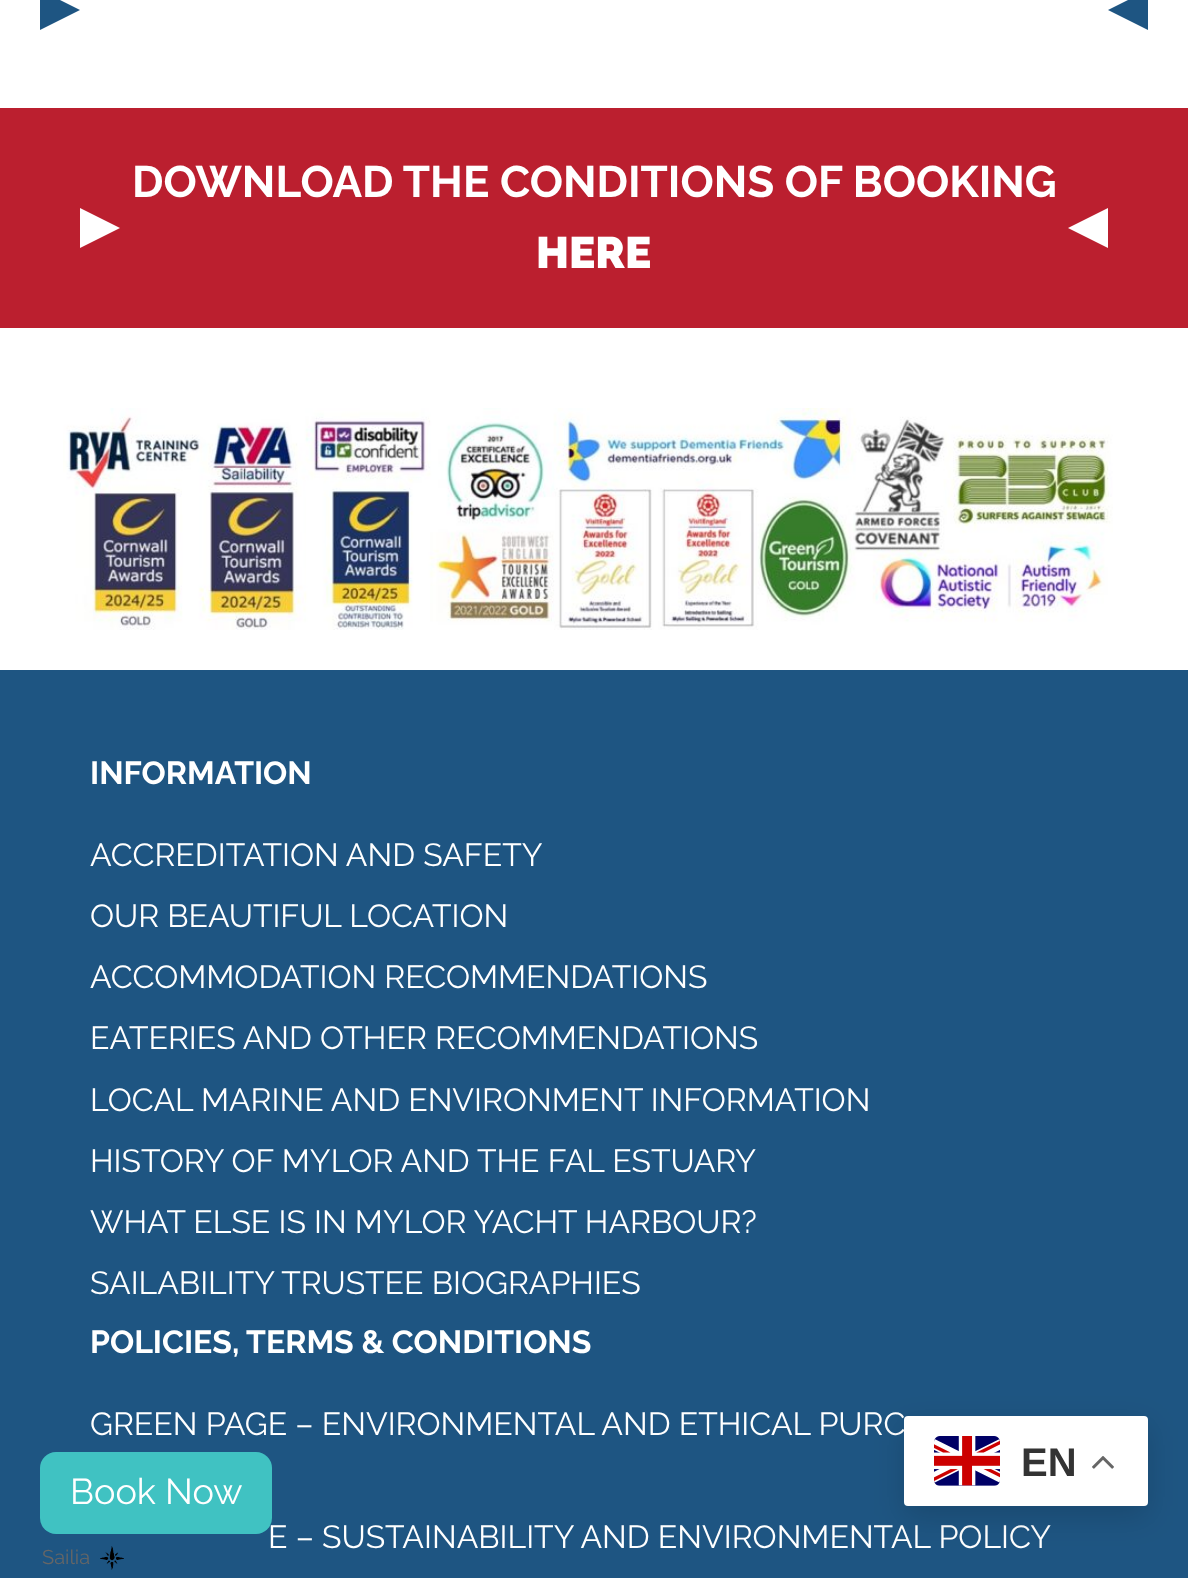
<?xml version="1.0" encoding="UTF-8"?>
<svg xmlns="http://www.w3.org/2000/svg" width="1188" height="1578">
    <defs>
        <filter id="blur1" x="-50%" y="-200%" width="200%" height="500%"><feGaussianBlur stdDeviation="55"/></filter>
        <filter id="blur2" x="-50%" y="-200%" width="200%" height="500%"><feGaussianBlur stdDeviation="15"/></filter>
    </defs>
    <rect width="100%" height="100%" fill="#FFFFFF"/>
    <path d="M 40 30 V -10 L 80 10 Z" fill="#1E5582"/>
    <path d="M 1148 -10 V 30 L 1108 10 Z" fill="#1E5582"/>
    <rect x="0" y="108" width="1188" height="220" fill="#BB1F2F"/>
    <text x="132" y="197" font-family="Raleway" font-size="44" font-weight="700" fill="#FFFFFF">DOWNLOAD THE CONDITIONS OF BOOKING</text>
    <path d="M 80 248 V 208 L 120 228 Z" fill="#FFFFFF"/>
    <path d="M 1108 208 V 248 L 1068 228 Z" fill="#FFFFFF"/>
    <text x="536" y="268" font-family="Raleway" font-size="44" font-weight="900" fill="#FFFFFF">HERE</text>
    <image x="63" y="408" width="1050" height="222" href="img_01.png"/>
    <rect x="0" y="670" width="1188" height="908" fill="#1E5582"/>
    <rect x="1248" y="54" width="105" height="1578" fill="#000000" fill-opacity="0.3" filter="url(#blur1)"/>
    <text x="90" y="784" font-family="Raleway" font-size="32" font-weight="700" fill="#FFFFFF">INFORMATION</text>
    <text font-family="Raleway" font-size="32" fill="#FFFFFF">
        <tspan x="90" y="866">ACCREDITATION AND SAFETY</tspan>
        <tspan x="90" y="927">OUR BEAUTIFUL LOCATION</tspan>
        <tspan x="90" y="988">ACCOMMODATION RECOMMENDATIONS</tspan>
        <tspan x="90" y="1049">EATERIES AND OTHER RECOMMENDATIONS</tspan>
        <tspan x="90" y="1111">LOCAL MARINE AND ENVIRONMENT INFORMATION</tspan>
        <tspan x="90" y="1172">HISTORY OF MYLOR AND THE FAL ESTUARY</tspan>
        <tspan x="90" y="1233">WHAT ELSE IS IN MYLOR YACHT HARBOUR?</tspan>
        <tspan x="90" y="1294">SAILABILITY TRUSTEE BIOGRAPHIES</tspan>
    </text>
    <text x="90" y="1353" font-family="Raleway" font-size="32" font-weight="700" fill="#FFFFFF">POLICIES, TERMS &amp; CONDITIONS</text>
    <text x="90" y="1435" font-family="Raleway" font-size="32" fill="#FFFFFF">GREEN PAGE – ENVIRONMENTAL AND ETHICAL PURC</text>
    <text x="268" y="1548" font-family="Raleway" font-size="32" fill="#FFFFFF">E – SUSTAINABILITY AND ENVIRONMENTAL POLICY</text>
    <rect x="904" y="1426" width="244" height="90" rx="4" fill="#000000" fill-opacity="0.15" filter="url(#blur2)"/>
    <rect x="904" y="1416" width="244" height="90" rx="4" fill="#FFFFFF"/>
    <image x="934" y="1436" width="66" height="50" href="img_02.png"/>
    <text x="1021" y="1476" font-family="Liberation Sans" font-size="40" font-weight="700" fill="#333333">EN</text>
    <image x="1092" y="1456" width="22" height="13" href="img_03.png"/>
    <rect x="40" y="1452" width="232" height="82" rx="16" fill="#40C2C2"/>
    <text x="70" y="1504" font-family="Raleway" font-size="36" fill="#FFFFFF">Book Now</text>
    <text x="42" y="1564" font-family="Raleway" font-size="20" fill="#666666">Sailia</text>
    <image x="100" y="1546" width="24" height="24" href="img_04.png"/>
</svg>
